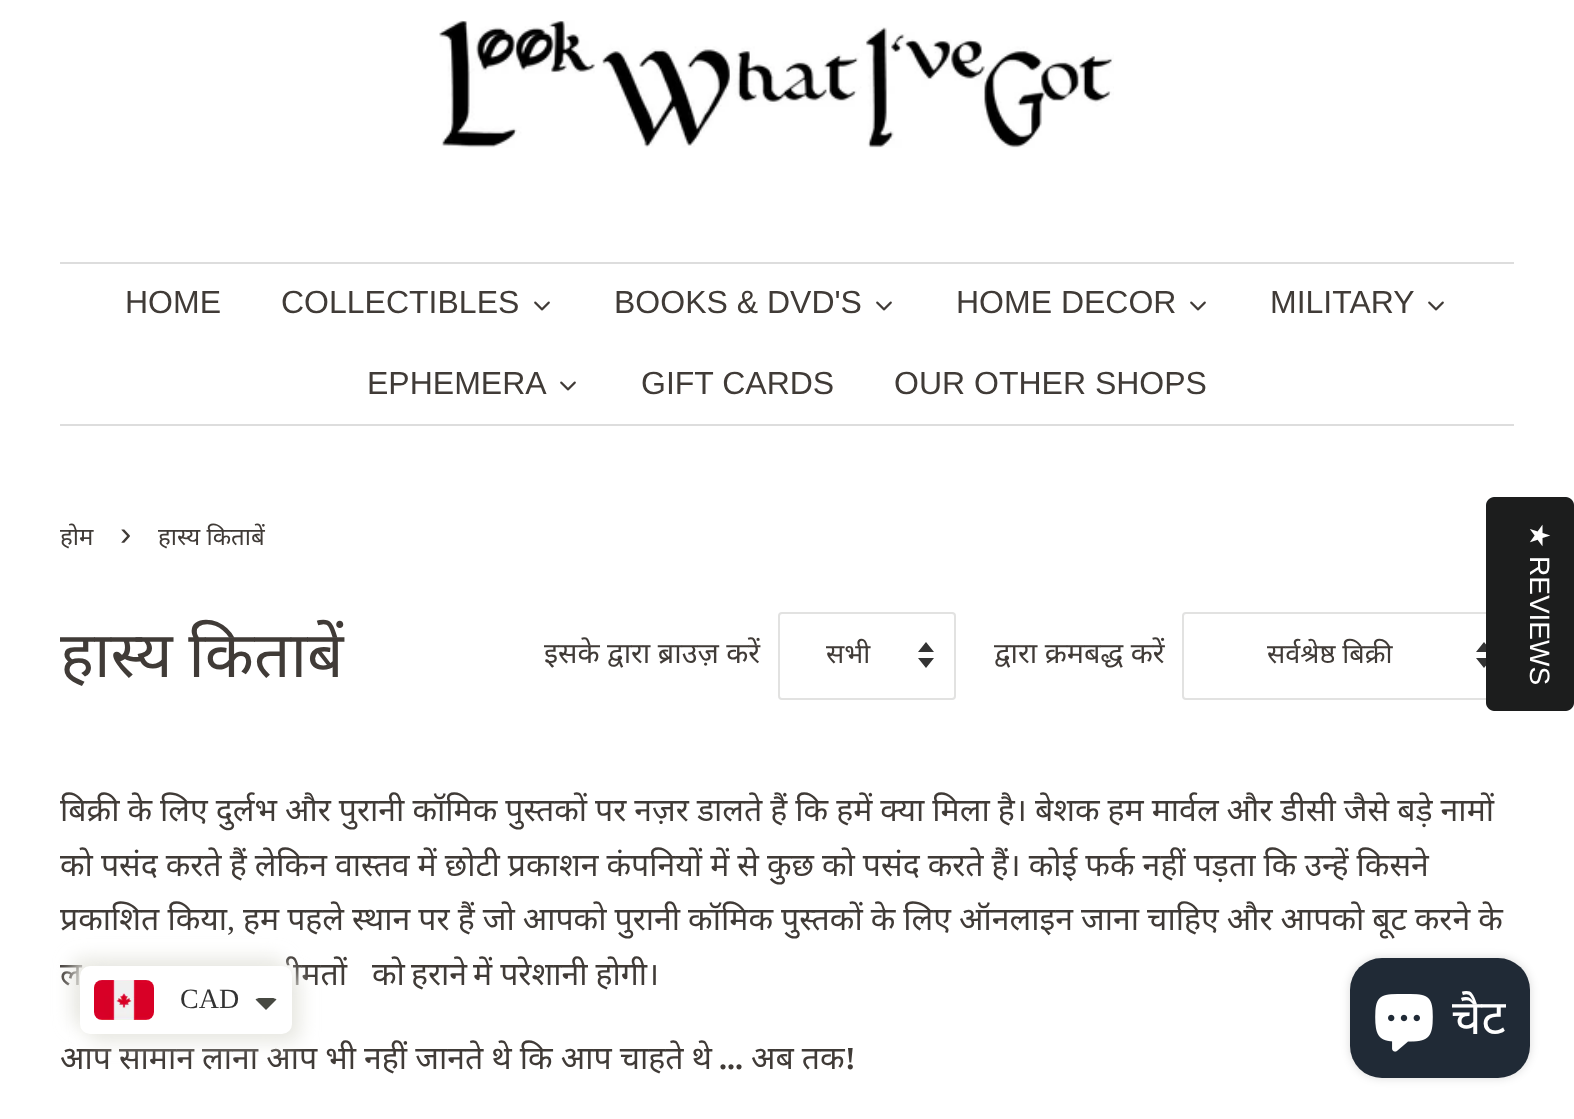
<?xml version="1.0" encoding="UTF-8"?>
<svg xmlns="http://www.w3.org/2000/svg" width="1574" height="1119">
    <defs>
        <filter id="blur1" x="-50%" y="-200%" width="200%" height="500%"><feGaussianBlur stdDeviation="9"/></filter>
        <filter id="blur2" x="-50%" y="-200%" width="200%" height="500%"><feGaussianBlur stdDeviation="5"/></filter>
        <clipPath id="clip1"><rect x="1452" y="988" width="54" height="60"/></clipPath>
    </defs>
    <rect width="100%" height="100%" fill="#FFFFFF"/>
    <image x="439" y="20" width="675" height="128" href="img_01.png"/>
    <rect x="60" y="262" width="1454" height="2" fill="#DDDDDD"/>
    <rect x="60" y="424" width="1454" height="2" fill="#DDDDDD"/>
    <text x="125" y="313" font-family="Liberation Sans" font-size="32" fill="#403B37">HOME</text>
    <text x="281" y="313" font-family="Liberation Sans" font-size="32" fill="#403B37">COLLECTIBLES</text>
    <image x="534" y="301" width="16" height="10" href="img_02.png"/>
    <text x="614" y="313" font-family="Liberation Sans" font-size="32" fill="#403B37">BOOKS &amp; DVD'S</text>
    <image x="876" y="301" width="16" height="10" href="img_02.png"/>
    <text x="956" y="313" font-family="Liberation Sans" font-size="32" fill="#403B37">HOME DECOR</text>
    <image x="1190" y="301" width="16" height="10" href="img_02.png"/>
    <text x="1270" y="313" font-family="Liberation Sans" font-size="32" fill="#403B37">MILITARY</text>
    <image x="1428" y="301" width="16" height="10" href="img_02.png"/>
    <text x="367" y="394" font-family="Liberation Sans" font-size="32" fill="#403B37">EPHEMERA</text>
    <image x="560" y="381" width="16" height="10" href="img_02.png"/>
    <text x="641" y="394" font-family="Liberation Sans" font-size="32" fill="#403B37">GIFT CARDS</text>
    <text x="894" y="394" font-family="Liberation Sans" font-size="32" fill="#403B37">OUR OTHER SHOPS</text>
    <text x="60" y="545" font-family="Noto Sans" font-size="24" fill="#403B37">होम</text>
    <text x="120" y="545" font-family="Liberation Sans" font-size="34" fill="#403B37">›</text>
    <text x="158" y="545" font-family="Noto Sans" font-size="24" fill="#403B37">हास्य किताबें</text>
    <text x="60" y="677" word-spacing="-1" font-family="Noto Sans" font-size="64" fill="#403B37">हास्य किताबें</text>
    <text x="544" y="663" font-family="Noto Sans" font-size="28.75" fill="#403B37">इसके द्वारा ब्राउज़ करें</text>
    <path d="M 918 658 L 926 668 L 934 658 Z M 926 642 L 918 652 H 934 Z" fill="#333333"/>
    <rect x="779" y="613" width="176" height="86" rx="3" fill="none" stroke="#E2E2E1" stroke-width="2"/>
    <text x="826" y="663" font-family="Noto Sans" font-size="27" fill="#403B37">सभी</text>
    <text x="994" y="663" font-family="Noto Sans" font-size="28.75" fill="#403B37">द्वारा क्रमबद्ध करें</text>
    <path d="M 1476 658 L 1484 668 L 1492 658 Z M 1484 642 L 1476 652 H 1492 Z" fill="#333333"/>
    <rect x="1183" y="613" width="330" height="86" rx="3" fill="none" stroke="#E2E2E1" stroke-width="2"/>
    <text x="1267" y="663" font-family="Noto Sans" font-size="27" fill="#403B37">सर्वश्रेष्ठ बिक्री</text>
    <text font-family="Noto Sans" font-size="32" fill="#403B37">
        <tspan x="60" y="821" word-spacing="-0.3">बिक्री के लिए दुर्लभ और पुरानी कॉमिक पुस्तकों पर नज़र डालते हैं कि हमें क्या मिला है। बेशक हम मार्वल और डीसी जैसे बड़े नामों</tspan>
        <tspan x="60" y="876" word-spacing="-0.3">को पसंद करते हैं लेकिन वास्तव में छोटी प्रकाशन कंपनियों में से कुछ को पसंद करते हैं। कोई फर्क नहीं पड़ता कि उन्हें किसने</tspan>
        <tspan x="60" y="930" word-spacing="-0.3">प्रकाशित किया</tspan>
    </text>
    <text x="227" y="930" font-family="Liberation Serif" font-size="32" fill="#403B37">,</text>
    <text x="243" y="930" word-spacing="-0.3" font-family="Noto Sans" font-size="32" fill="#403B37">हम पहले स्थान पर हैं जो आपको पुरानी कॉमिक पुस्तकों के लिए ऑनलाइन जाना चाहिए और आपको बूट करने के</text>
    <text x="60" y="985" word-spacing="-0.3" font-family="Noto Sans" font-size="32" fill="#403B37">ल</text>
    <text x="293" y="985" word-spacing="-0.3" font-family="Noto Sans" font-size="32" fill="#403B37">ीमतों</text>
    <text x="372" y="985" word-spacing="-0.3" font-family="Noto Sans" font-size="32" fill="#403B37">को</text>
    <text x="411" y="985" word-spacing="-0.3" font-family="Noto Sans" font-size="32" fill="#403B37">हराने</text>
    <text x="473" y="985" word-spacing="-0.3" font-family="Noto Sans" font-size="32" fill="#403B37">में परेशानी होगी।</text>
    <text x="60" y="1069" word-spacing="-0.25" font-family="Noto Sans" font-size="32" fill="#403B37">आप सामान लाना आप भी नहीं जानते थे कि आप चाहते थे</text>
    <text x="719" y="1069" font-family="Liberation Serif" font-size="32" font-weight="700" fill="#403B37">...</text>
    <text x="751" y="1069" word-spacing="-0.25" font-family="Noto Sans" font-size="32" fill="#403B37">अब तक</text>
    <text x="845" y="1069" font-family="Liberation Serif" font-size="32" font-weight="700" fill="#403B37">!</text>
    <path d="M 1574 505 V 703 C 1574 707 1570 711 1566 711 H 1494 C 1490 711 1486 707 1486 703 V 505 C 1486 501 1490 497 1494 497 H 1566 C 1570 497 1574 501 1574 505 Z" fill="#1C1D1D"/>
    <text x="1530" y="523" transform="rotate(90 1530 523)" font-family="DejaVu Sans" font-size="28" fill="#FFFFFF">★</text>
    <text x="1530" y="556" transform="rotate(90 1530 556)" font-family="Liberation Sans" font-size="28" fill="#FFFFFF">REVIEWS</text>
    <rect x="72" y="958" width="212" height="68" rx="10" fill="#E8E8E2" filter="url(#blur1)"/>
    <rect x="88" y="974" width="212" height="68" rx="10" fill="#E8E8E2" filter="url(#blur1)"/>
    <rect x="80" y="966" width="212" height="68" rx="10" fill="#FFFFFF"/>
    <image x="94" y="980" width="60" height="40" href="img_03.png"/>
    <text x="180" y="1008" font-family="Liberation Serif" font-size="28" fill="#333333">CAD</text>
    <path d="M 260 998 C 258 998 257 998.5 255.5 999.5 L 266 1010 L 276.5 999.5 C 275 998.5 274 998 272 998 Z" fill="#474942"/>
    <rect x="1350" y="958" width="180" height="120" rx="32" fill="#000000" fill-opacity="0.15" filter="url(#blur2)"/>
    <rect x="1350" y="958" width="180" height="120" rx="32" fill="#202A36"/>
    <image x="1375" y="994" width="58" height="58" href="img_04.png"/>
    <g clip-path="url(#clip1)">
        <text x="1451" y="1034" font-family="Noto Sans" font-size="48" fill="#FFFFFF">चैट</text>
    </g>
</svg>
